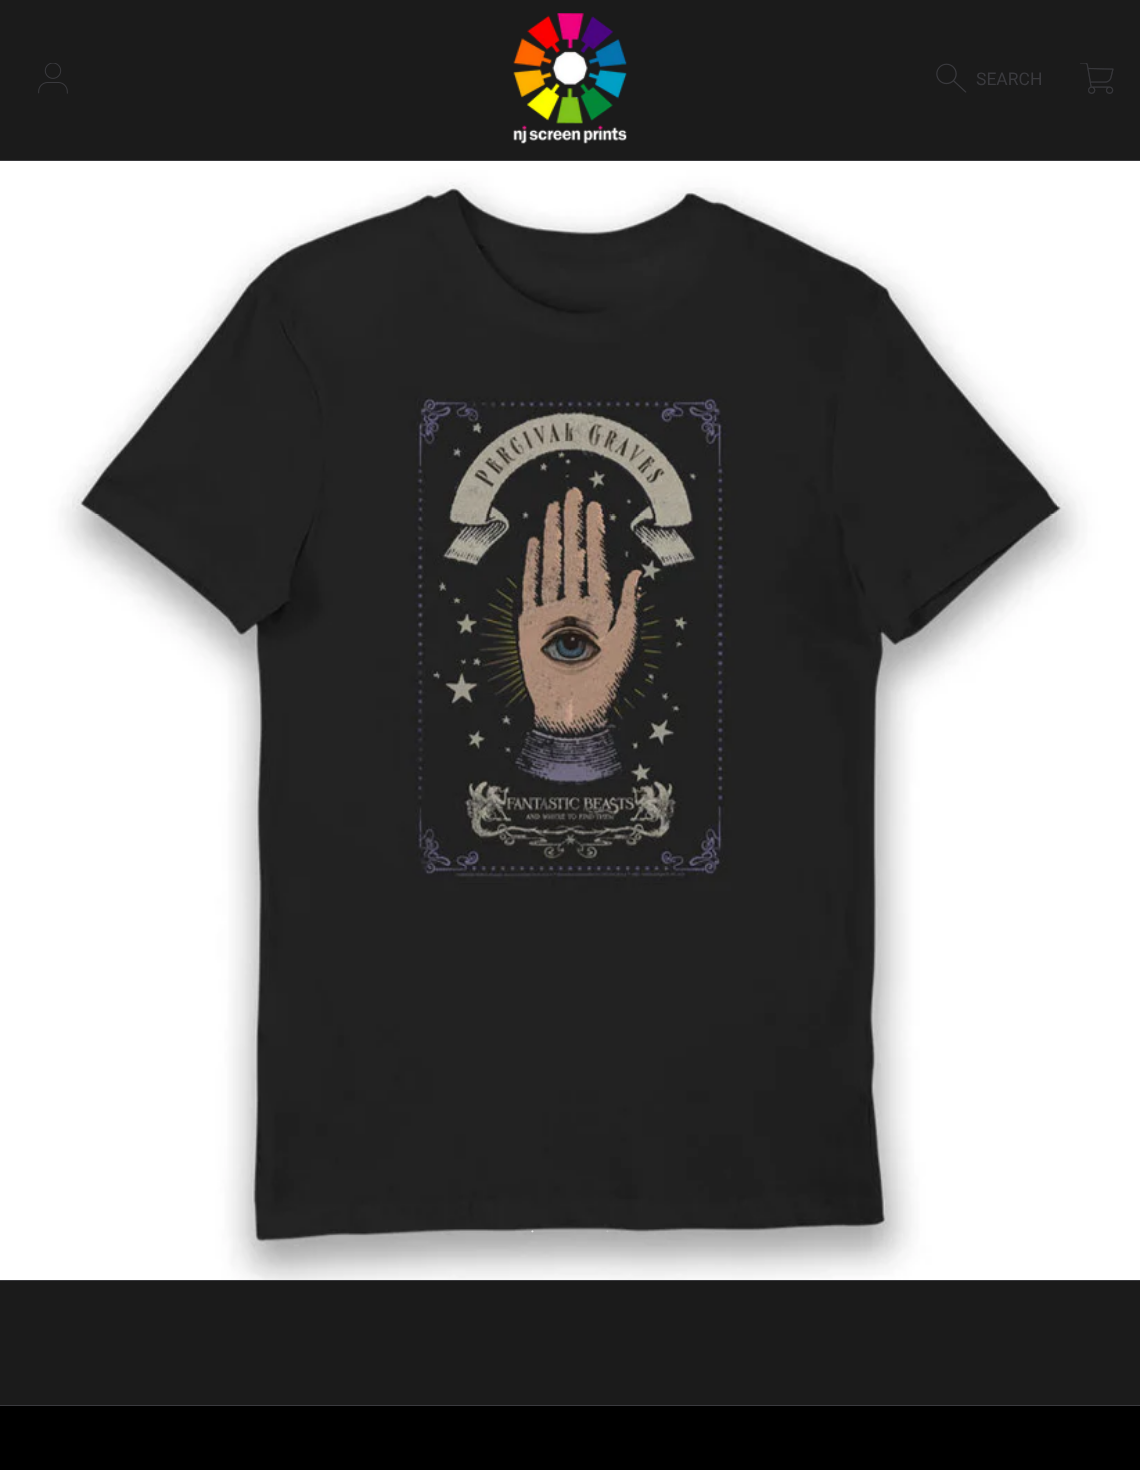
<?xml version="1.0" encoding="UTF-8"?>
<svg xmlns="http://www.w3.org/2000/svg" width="1140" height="1470">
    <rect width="100%" height="100%" fill="#1B1B1B"/>
    <image x="38" y="63" width="30" height="31" href="img_01.png"/>
    <image x="513" y="13" width="114" height="131" href="img_02.png"/>
    <image x="936" y="63" width="31" height="30" href="img_03.png"/>
    <text x="976" y="85" font-family="Roboto" font-size="17.5" fill="#3A3A3E">SEARCH</text>
    <image x="1080" y="63" width="34" height="31" href="img_04.png"/>
    <rect x="0" y="160" width="1140" height="1" fill="#3A3A3E"/>
    <image x="0" y="161" width="1140" height="1119" href="img_05.png"/>
    <text x="531" y="1234" font-family="Liberation Serif" font-size="8" fill="#E9E9E9">•</text>
    <text x="606" y="1234" font-family="Liberation Serif" font-size="8" fill="#C1C1C1">•</text>
    <rect x="0" y="1280" width="1140" height="1" fill="#3A3A3E"/>
    <rect x="0" y="1406" width="1140" height="64" fill="#000000"/>
    <rect x="0" y="1405" width="1140" height="1" fill="#3A3A3E"/>
</svg>
